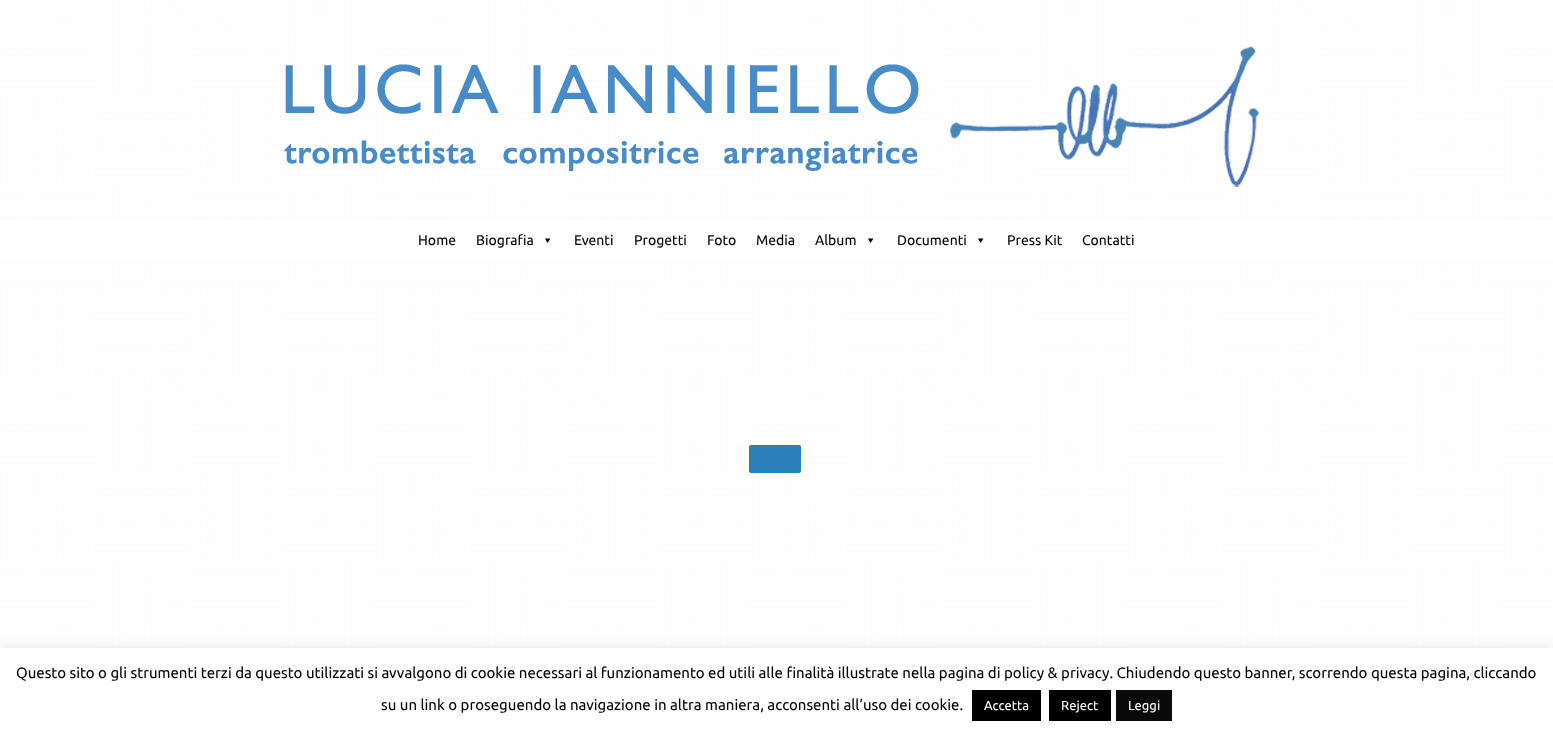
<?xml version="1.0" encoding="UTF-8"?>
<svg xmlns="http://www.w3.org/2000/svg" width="1553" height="733">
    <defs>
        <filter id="blur1" x="-50%" y="-200%" width="200%" height="500%"><feGaussianBlur stdDeviation="5"/></filter>
    </defs>
    <rect width="100%" height="100%" fill="#FFFFFF"/>
    <image x="0" y="0" width="1553" height="648" href="img_01.png"/>
    <rect x="0" y="0" width="1553" height="220" fill="#FFFFFF" fill-opacity="0.85"/>
    <image x="284" y="45" width="975" height="142" href="img_02.png"/>
    <rect x="0" y="220" width="1553" height="40" fill="#FFFFFF"/>
    <text x="418" y="245" font-family="Ubuntu" font-size="14" fill="#000000">Home</text>
    <text x="476" y="245" font-family="Ubuntu" font-size="14" fill="#000000">Biografia</text>
    <path d="M 550.5 238.5 L 547.5 243 L 545 238.5 Z" fill="#000000"/>
    <text x="574" y="245" font-family="Ubuntu" font-size="14" fill="#000000">Eventi</text>
    <text x="634" y="245" font-family="Ubuntu" font-size="14" fill="#000000">Progetti</text>
    <text x="707" y="245" font-family="Ubuntu" font-size="14" fill="#000000">Foto</text>
    <text x="756" y="245" font-family="Ubuntu" font-size="14" fill="#000000">Media</text>
    <text x="815" y="245" font-family="Ubuntu" font-size="14" fill="#000000">Album</text>
    <path d="M 873.5 238.5 L 870.5 243 L 868 238.5 Z" fill="#000000"/>
    <text x="897" y="245" font-family="Ubuntu" font-size="14" fill="#000000">Documenti</text>
    <path d="M 983.5 238.5 L 980.5 243 L 978 238.5 Z" fill="#000000"/>
    <text x="1007" y="245" font-family="Ubuntu" font-size="14" fill="#000000">Press Kit</text>
    <text x="1082" y="245" font-family="Ubuntu" font-size="14" fill="#000000">Contatti</text>
    <rect x="0" y="260" width="1553" height="368" fill="#FFFFFF" fill-opacity="0.85"/>
    <rect x="749" y="445" width="52" height="28" rx="2" fill="#2980B9"/>
    <rect x="0" y="628" width="1553" height="20" fill="#FFFFFF" fill-opacity="0.85"/>
    <rect x="0" y="647" width="1553" height="85" fill="#ACABAB" fill-opacity="0.3" filter="url(#blur1)"/>
    <rect x="0" y="648" width="1553" height="85" fill="#FFFFFF"/>
    <text x="16" y="678" font-family="Ubuntu" font-size="15" fill="#000000">Questo sito o gli strumenti terzi da questo utilizzati si avvalgono di cookie necessari al funzionamento ed utili alle finalità illustrate nella pagina di policy &amp; privacy. Chiudendo questo banner, scorrendo questa pagina, cliccando</text>
    <text x="381" y="710" font-family="Ubuntu" font-size="15" fill="#000000">su un link o proseguendo la navigazione in altra maniera, acconsenti all’uso dei cookie.</text>
    <rect x="972" y="690" width="69" height="31" fill="#000000"/>
    <text x="984" y="710" font-family="Ubuntu" font-size="13" fill="#FFFFFF">Accetta</text>
    <rect x="1049" y="690" width="62" height="31" fill="#000000"/>
    <text x="1061" y="710" font-family="Ubuntu" font-size="13" fill="#FFFFFF">Reject</text>
    <rect x="1116" y="690" width="56" height="31" fill="#0A0A0A"/>
    <text x="1128" y="710" font-family="Ubuntu" font-size="13" fill="#FFFFFF">Leggi</text>
</svg>
